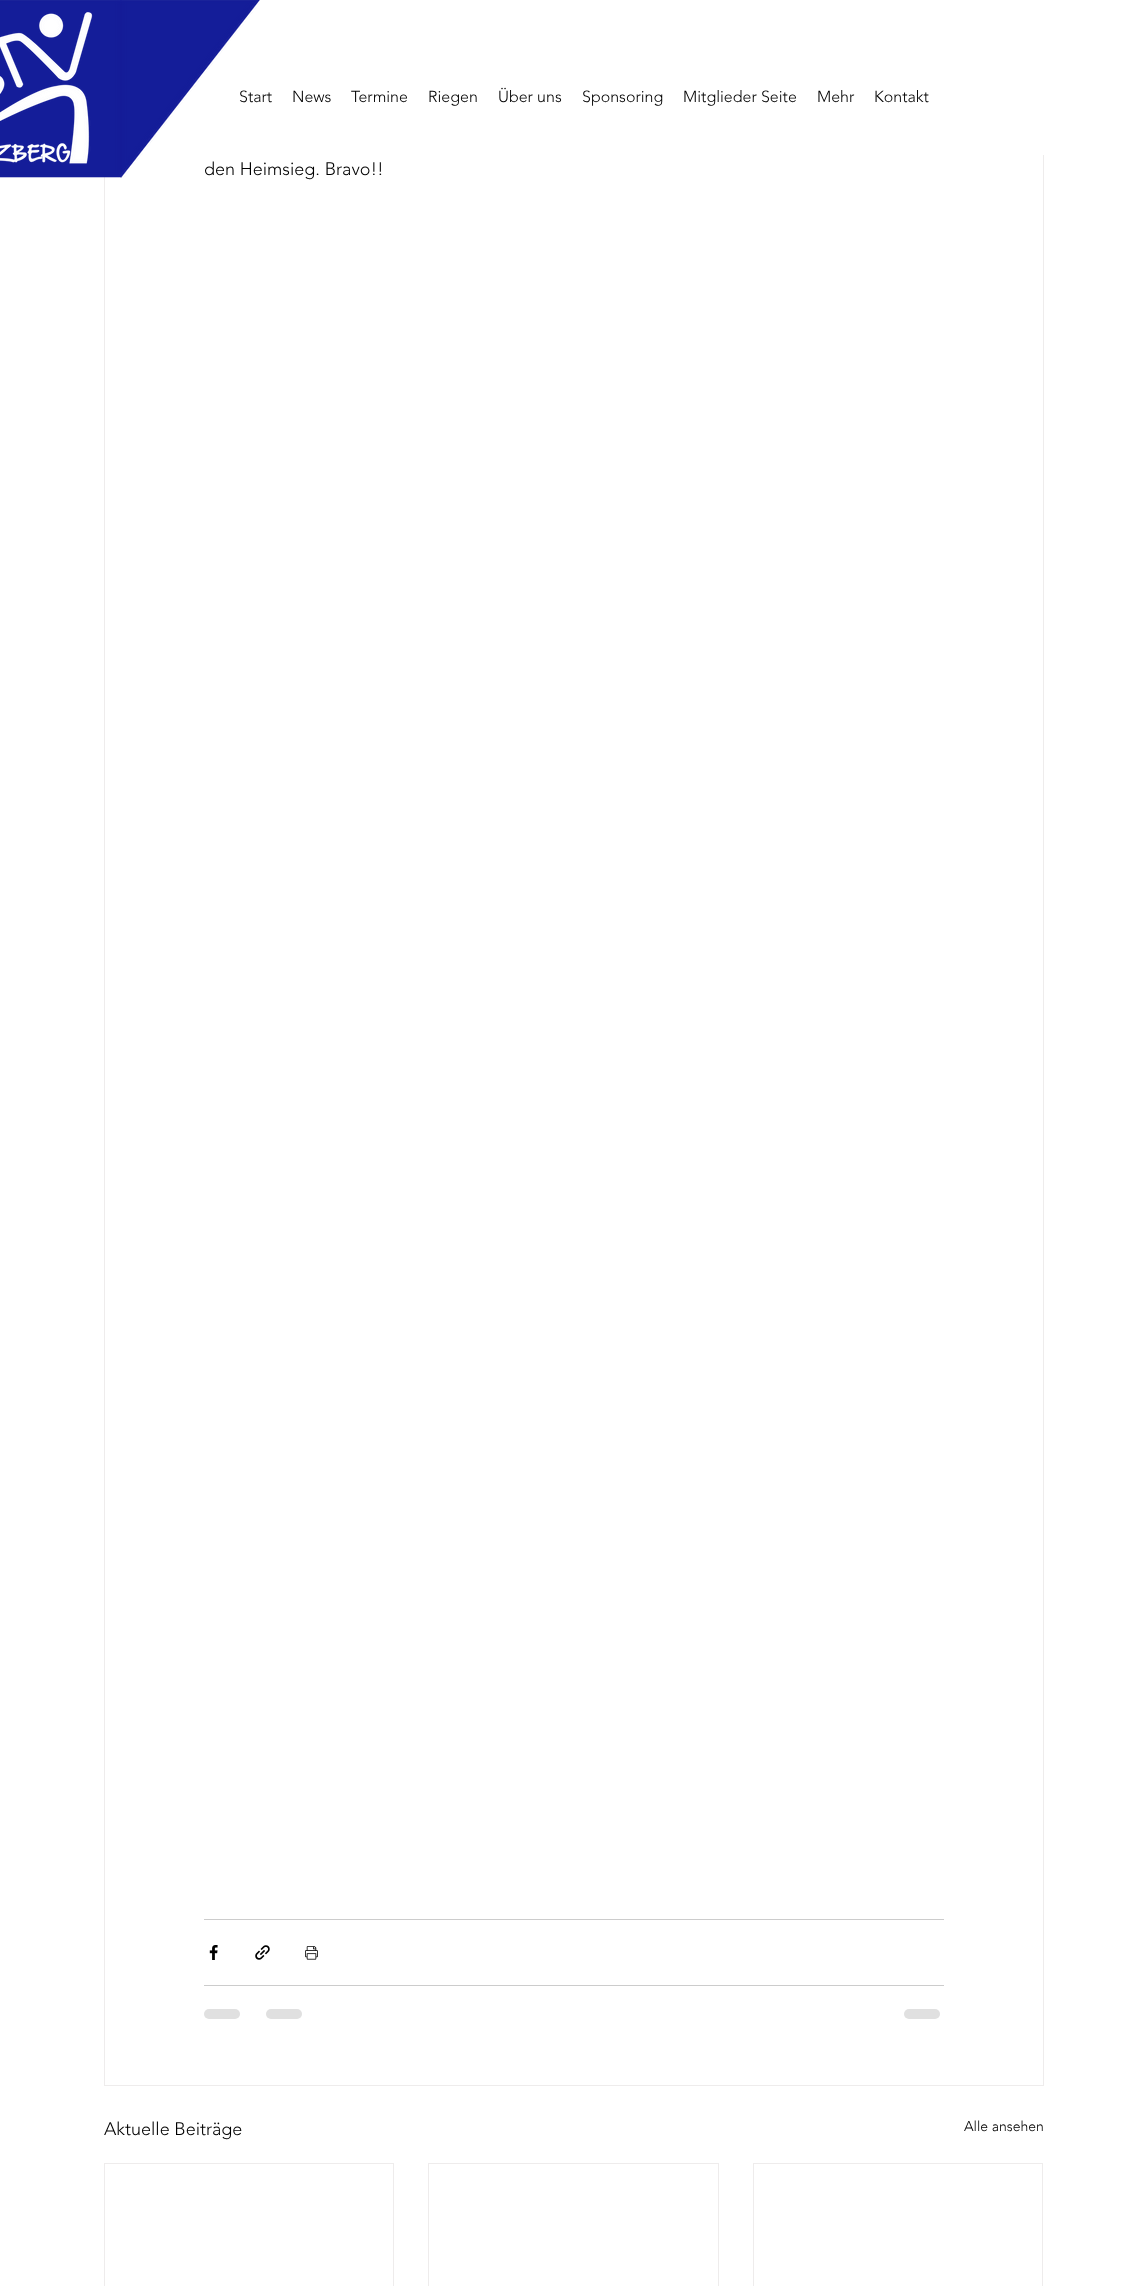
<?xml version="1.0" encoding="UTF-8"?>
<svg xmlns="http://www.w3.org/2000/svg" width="1147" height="2286">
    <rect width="100%" height="100%" fill="#FFFFFF"/>
    <rect x="104.5" y="-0.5" width="939" height="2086" fill="none" stroke="#EEECEC"/>
    <rect x="104" y="0" width="940" height="155" fill="#FFFFFF"/>
    <text x="204" y="175" font-family="'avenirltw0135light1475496'" font-size="18" font-weight="300" fill="#000000">den Heimsieg. Bravo!!</text>
    <image x="0" y="0" width="260" height="178" href="img_01.png"/>
    <image x="0" y="12" width="93" height="152" href="img_02.png"/>
    <text x="239" y="102" font-family="'avenirltw0135light1475496'" font-size="16" font-weight="300" fill="#000000">Start</text>
    <text x="292" y="102" font-family="'avenirltw0135light1475496'" font-size="16" font-weight="300" fill="#000000">News</text>
    <text x="351" y="102" font-family="'avenirltw0135light1475496'" font-size="16" font-weight="300" fill="#000000">Termine</text>
    <text x="428" y="102" font-family="'avenirltw0135light1475496'" font-size="16" font-weight="300" fill="#000000">Riegen</text>
    <text x="498" y="102" font-family="'avenirltw0135light1475496'" font-size="16" font-weight="300" fill="#000000">Über uns</text>
    <text x="582" y="102" font-family="'avenirltw0135light1475496'" font-size="16" font-weight="300" fill="#000000">Sponsoring</text>
    <text x="683" y="102" font-family="'avenirltw0135light1475496'" font-size="16" font-weight="300" fill="#000000">Mitglieder Seite</text>
    <text x="817" y="102" font-family="'avenirltw0135light1475496'" font-size="16" font-weight="300" fill="#000000">Mehr</text>
    <text x="874" y="102" font-family="'avenirltw0135light1475496'" font-size="16" font-weight="300" fill="#000000">Kontakt</text>
    <rect x="204" y="1919" width="740" height="1" fill="#CCCCCC"/>
    <image x="209" y="1945" width="9" height="15" href="img_03.png"/>
    <image x="255" y="1945" width="15" height="15" href="img_04.png"/>
    <image x="305" y="1946" width="13" height="14" href="img_05.png"/>
    <rect x="204" y="1985" width="740" height="1" fill="#CCCCCC"/>
    <rect x="204" y="2009" width="36" height="10" rx="5" fill="#E0E0E0"/>
    <rect x="266" y="2009" width="36" height="10" rx="5" fill="#E0E0E0"/>
    <rect x="904" y="2009" width="36" height="10" rx="5" fill="#E0E0E0"/>
    <text x="104" y="2135" font-family="'avenirltw0135light1475496'" font-size="18" font-weight="300" fill="#000000">Aktuelle Beiträge</text>
    <text x="964" y="2131" font-family="'avenirltw0135light1475496'" font-size="14" font-weight="300" fill="#000000">Alle ansehen</text>
    <rect x="104.5" y="2163.5" width="289" height="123" fill="none" stroke="#EEECEC"/>
    <rect x="428.5" y="2163.5" width="290" height="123" fill="none" stroke="#EEECEC"/>
    <rect x="753.5" y="2163.5" width="289" height="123" fill="none" stroke="#EEECEC"/>
</svg>
